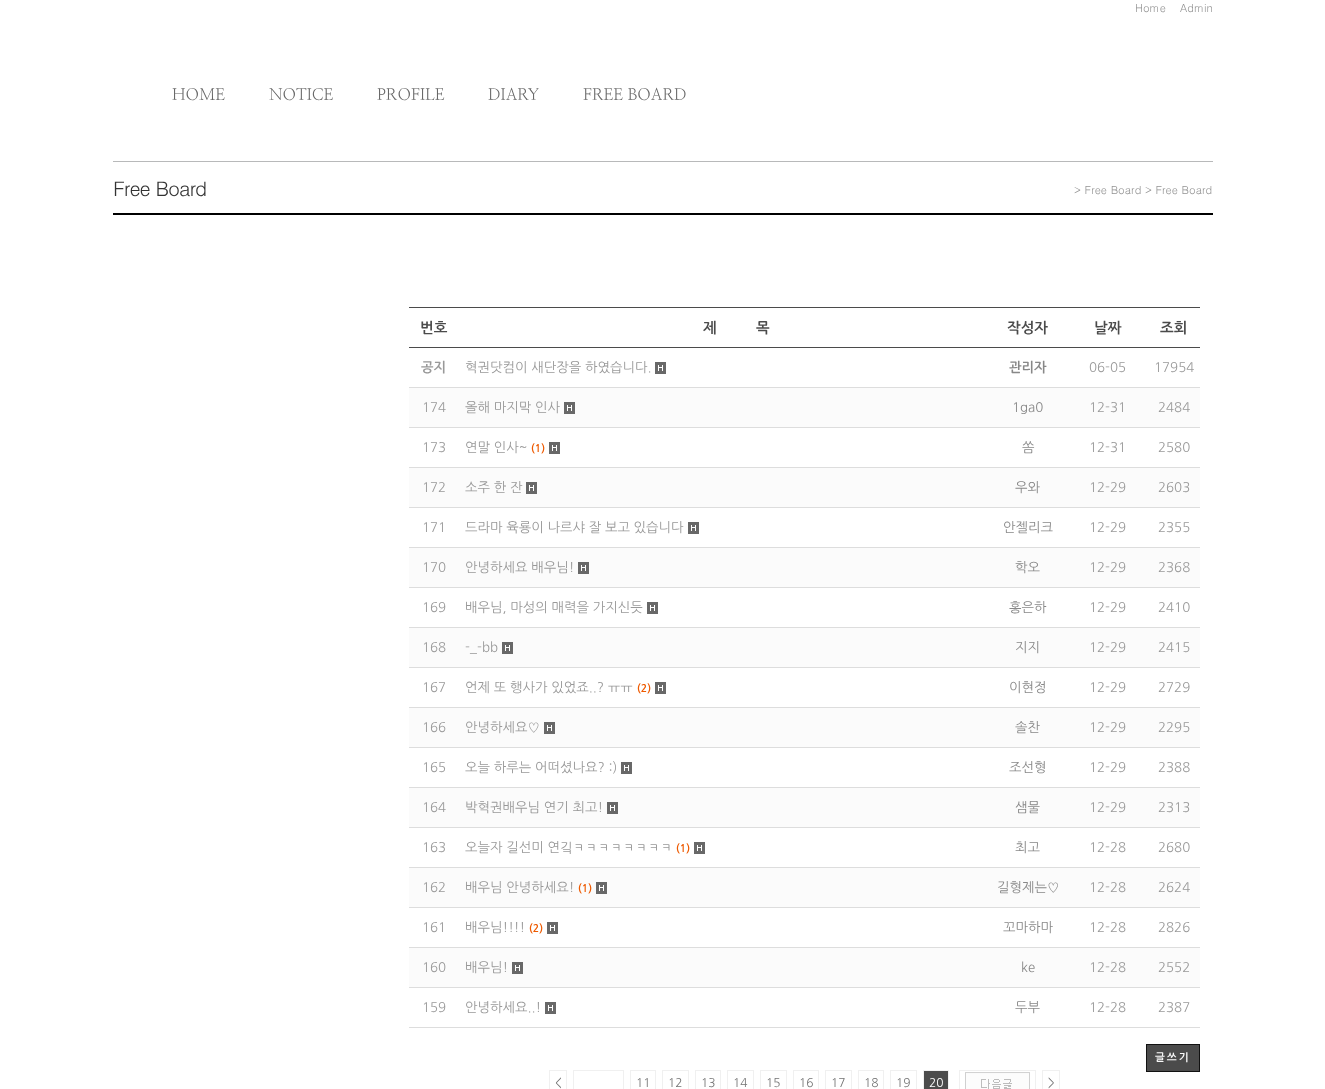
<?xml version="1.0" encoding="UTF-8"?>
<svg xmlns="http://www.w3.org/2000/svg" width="1325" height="1089">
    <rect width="100%" height="100%" fill="#FFFFFF"/>
    <text x="1135" y="12" font-family="Dotum" font-size="11" fill="#939393">Home</text>
    <text x="1180" y="12" font-family="Dotum" font-size="11" fill="#939393">Admin</text>
    <text x="172" y="100" font-family="NanumMyeongjo" font-size="16" fill="#666666">HOME</text>
    <text x="269" y="100" font-family="NanumMyeongjo" font-size="16" fill="#666666">NOTICE</text>
    <text x="377" y="100" font-family="NanumMyeongjo" font-size="16" fill="#666666">PROFILE</text>
    <text x="488" y="100" font-family="NanumMyeongjo" font-size="16" fill="#666666">DIARY</text>
    <text x="583" y="100" font-family="NanumMyeongjo" font-size="16" fill="#666666">FREE BOARD</text>
    <rect x="113" y="161" width="1100" height="1" fill="#B8B9BA"/>
    <text x="113" y="196" font-family="Dotum" font-size="20" letter-spacing="-1" fill="#333333">Free Board</text>
    <text x="1074" y="194" font-family="Dotum" font-size="11" fill="#939393">&gt; Free Board &gt; Free Board</text>
    <rect x="113" y="213" width="1100" height="2" fill="#000000"/>
    <rect x="409" y="307" width="791" height="1" fill="#4B4B4B"/>
    <rect x="409" y="347" width="791" height="1" fill="#4B4B4B"/>
    <text x="420" y="333" font-family="NanumGothic" font-size="14.5" font-weight="700" fill="#4B4B4B">번호</text>
    <text x="703" y="333" font-family="NanumGothic" font-size="14.5" font-weight="700" fill="#4B4B4B">제</text>
    <text x="756" y="333" font-family="NanumGothic" font-size="14.5" font-weight="700" fill="#4B4B4B">목</text>
    <text x="1007" y="333" font-family="NanumGothic" font-size="14.5" font-weight="700" fill="#4B4B4B">작성자</text>
    <text x="1094" y="333" font-family="NanumGothic" font-size="14.5" font-weight="700" fill="#4B4B4B">날짜</text>
    <text x="1160" y="333" font-family="NanumGothic" font-size="14.5" font-weight="700" fill="#4B4B4B">조회</text>
    <rect x="409" y="387" width="50" height="1" fill="#DDDDDD"/>
    <text x="421" y="372" font-family="NanumGothic" font-size="13.3" font-weight="700" fill="#999999">공지</text>
    <text x="465" y="372" font-family="NanumGothic" font-size="13.3" fill="#999999">혁권닷컴이 새단장을 하였습니다.</text>
    <image x="655" y="362" width="11" height="12" href="img_01.png"/>
    <rect x="459" y="387" width="741" height="1" fill="#DDDDDD"/>
    <text x="1009" y="372" font-family="NanumGothic" font-size="13.3" font-weight="700" fill="#888888">관리자</text>
    <text x="1089" y="372" font-family="NanumGothic" font-size="13.3" fill="#999999">06-05</text>
    <text x="1154" y="372" font-family="NanumGothic" font-size="13.3" fill="#999999">17954</text>
    <rect x="409" y="388" width="791" height="39" fill="#FBFBFB"/>
    <rect x="409" y="427" width="50" height="1" fill="#DDDDDD"/>
    <text x="422" y="412" font-family="NanumGothic" font-size="13.3" fill="#999999">174</text>
    <text x="465" y="412" font-family="NanumGothic" font-size="13.3" fill="#999999">올해 마지막 인사</text>
    <image x="564" y="402" width="11" height="12" href="img_01.png"/>
    <rect x="459" y="427" width="741" height="1" fill="#DDDDDD"/>
    <text x="1012" y="412" font-family="NanumGothic" font-size="13.3" fill="#888888">1ga0</text>
    <text x="1089" y="412" font-family="NanumGothic" font-size="13.3" fill="#999999">12-31</text>
    <text x="1158" y="412" font-family="NanumGothic" font-size="13.3" fill="#999999">2484</text>
    <rect x="409" y="467" width="50" height="1" fill="#DDDDDD"/>
    <text x="422" y="452" font-family="NanumGothic" font-size="13.3" fill="#999999">173</text>
    <text x="465" y="452" font-family="NanumGothic" font-size="13.3" fill="#999999">연말 인사~</text>
    <text x="531" y="452" font-family="NanumGothic" font-size="10.5" font-weight="700" fill="#EE5A00">(1)</text>
    <image x="549" y="442" width="11" height="12" href="img_01.png"/>
    <rect x="459" y="467" width="741" height="1" fill="#DDDDDD"/>
    <text x="1022" y="452" font-family="NanumGothic" font-size="13.3" fill="#888888">쏨</text>
    <text x="1089" y="452" font-family="NanumGothic" font-size="13.3" fill="#999999">12-31</text>
    <text x="1158" y="452" font-family="NanumGothic" font-size="13.3" fill="#999999">2580</text>
    <rect x="409" y="468" width="791" height="39" fill="#FBFBFB"/>
    <rect x="409" y="507" width="50" height="1" fill="#DDDDDD"/>
    <text x="422" y="492" font-family="NanumGothic" font-size="13.3" fill="#999999">172</text>
    <text x="465" y="492" font-family="NanumGothic" font-size="13.3" fill="#999999">소주 한 잔</text>
    <image x="526" y="482" width="11" height="12" href="img_01.png"/>
    <rect x="459" y="507" width="741" height="1" fill="#DDDDDD"/>
    <text x="1015" y="492" font-family="NanumGothic" font-size="13.3" fill="#888888">우와</text>
    <text x="1089" y="492" font-family="NanumGothic" font-size="13.3" fill="#999999">12-29</text>
    <text x="1158" y="492" font-family="NanumGothic" font-size="13.3" fill="#999999">2603</text>
    <rect x="409" y="547" width="50" height="1" fill="#DDDDDD"/>
    <text x="422" y="532" font-family="NanumGothic" font-size="13.3" fill="#999999">171</text>
    <text x="465" y="532" font-family="NanumGothic" font-size="13.3" fill="#999999">드라마 육룡이 나르샤 잘 보고 있습니다</text>
    <image x="688" y="522" width="11" height="12" href="img_01.png"/>
    <rect x="459" y="547" width="741" height="1" fill="#DDDDDD"/>
    <text x="1003" y="532" font-family="NanumGothic" font-size="13.3" fill="#888888">안젤리크</text>
    <text x="1089" y="532" font-family="NanumGothic" font-size="13.3" fill="#999999">12-29</text>
    <text x="1158" y="532" font-family="NanumGothic" font-size="13.3" fill="#999999">2355</text>
    <rect x="409" y="548" width="791" height="39" fill="#FBFBFB"/>
    <rect x="409" y="587" width="50" height="1" fill="#DDDDDD"/>
    <text x="422" y="572" font-family="NanumGothic" font-size="13.3" fill="#999999">170</text>
    <text x="465" y="572" font-family="NanumGothic" font-size="13.3" fill="#999999">안녕하세요 배우님!</text>
    <image x="578" y="562" width="11" height="12" href="img_01.png"/>
    <rect x="459" y="587" width="741" height="1" fill="#DDDDDD"/>
    <text x="1015" y="572" font-family="NanumGothic" font-size="13.3" fill="#888888">학오</text>
    <text x="1089" y="572" font-family="NanumGothic" font-size="13.3" fill="#999999">12-29</text>
    <text x="1158" y="572" font-family="NanumGothic" font-size="13.3" fill="#999999">2368</text>
    <rect x="409" y="627" width="50" height="1" fill="#DDDDDD"/>
    <text x="422" y="612" font-family="NanumGothic" font-size="13.3" fill="#999999">169</text>
    <text x="465" y="612" font-family="NanumGothic" font-size="13.3" fill="#999999">배우님, 마성의 매력을 가지신듯</text>
    <image x="647" y="602" width="11" height="12" href="img_01.png"/>
    <rect x="459" y="627" width="741" height="1" fill="#DDDDDD"/>
    <text x="1009" y="612" font-family="NanumGothic" font-size="13.3" fill="#888888">홍은하</text>
    <text x="1089" y="612" font-family="NanumGothic" font-size="13.3" fill="#999999">12-29</text>
    <text x="1158" y="612" font-family="NanumGothic" font-size="13.3" fill="#999999">2410</text>
    <rect x="409" y="628" width="791" height="39" fill="#FBFBFB"/>
    <rect x="409" y="667" width="50" height="1" fill="#DDDDDD"/>
    <text x="422" y="652" font-family="NanumGothic" font-size="13.3" fill="#999999">168</text>
    <text x="465" y="652" font-family="NanumGothic" font-size="13.3" fill="#999999">-_-bb</text>
    <image x="502" y="642" width="11" height="12" href="img_01.png"/>
    <rect x="459" y="667" width="741" height="1" fill="#DDDDDD"/>
    <text x="1015" y="652" font-family="NanumGothic" font-size="13.3" fill="#888888">지지</text>
    <text x="1089" y="652" font-family="NanumGothic" font-size="13.3" fill="#999999">12-29</text>
    <text x="1158" y="652" font-family="NanumGothic" font-size="13.3" fill="#999999">2415</text>
    <rect x="409" y="707" width="50" height="1" fill="#DDDDDD"/>
    <text x="422" y="692" font-family="NanumGothic" font-size="13.3" fill="#999999">167</text>
    <text x="465" y="692" font-family="NanumGothic" font-size="13.3" fill="#999999">언제 또 행사가 있었죠..? ㅠㅠ</text>
    <text x="637" y="692" font-family="NanumGothic" font-size="10.5" font-weight="700" fill="#EE5A00">(2)</text>
    <image x="655" y="682" width="11" height="12" href="img_01.png"/>
    <rect x="459" y="707" width="741" height="1" fill="#DDDDDD"/>
    <text x="1009" y="692" font-family="NanumGothic" font-size="13.3" fill="#888888">이현정</text>
    <text x="1089" y="692" font-family="NanumGothic" font-size="13.3" fill="#999999">12-29</text>
    <text x="1158" y="692" font-family="NanumGothic" font-size="13.3" fill="#999999">2729</text>
    <rect x="409" y="708" width="791" height="39" fill="#FBFBFB"/>
    <rect x="409" y="747" width="50" height="1" fill="#DDDDDD"/>
    <text x="422" y="732" font-family="NanumGothic" font-size="13.3" fill="#999999">166</text>
    <text x="465" y="732" font-family="NanumGothic" font-size="13.3" fill="#999999">안녕하세요♡</text>
    <image x="544" y="722" width="11" height="12" href="img_01.png"/>
    <rect x="459" y="747" width="741" height="1" fill="#DDDDDD"/>
    <text x="1015" y="732" font-family="NanumGothic" font-size="13.3" fill="#888888">솔찬</text>
    <text x="1089" y="732" font-family="NanumGothic" font-size="13.3" fill="#999999">12-29</text>
    <text x="1158" y="732" font-family="NanumGothic" font-size="13.3" fill="#999999">2295</text>
    <rect x="409" y="787" width="50" height="1" fill="#DDDDDD"/>
    <text x="422" y="772" font-family="NanumGothic" font-size="13.3" fill="#999999">165</text>
    <text x="465" y="772" font-family="NanumGothic" font-size="13.3" fill="#999999">오늘 하루는 어떠셨나요? :)</text>
    <image x="621" y="762" width="11" height="12" href="img_01.png"/>
    <rect x="459" y="787" width="741" height="1" fill="#DDDDDD"/>
    <text x="1009" y="772" font-family="NanumGothic" font-size="13.3" fill="#888888">조선형</text>
    <text x="1089" y="772" font-family="NanumGothic" font-size="13.3" fill="#999999">12-29</text>
    <text x="1158" y="772" font-family="NanumGothic" font-size="13.3" fill="#999999">2388</text>
    <rect x="409" y="788" width="791" height="39" fill="#FBFBFB"/>
    <rect x="409" y="827" width="50" height="1" fill="#DDDDDD"/>
    <text x="422" y="812" font-family="NanumGothic" font-size="13.3" fill="#999999">164</text>
    <text x="465" y="812" font-family="NanumGothic" font-size="13.3" fill="#999999">박혁권배우님 연기 최고!</text>
    <image x="607" y="802" width="11" height="12" href="img_01.png"/>
    <rect x="459" y="827" width="741" height="1" fill="#DDDDDD"/>
    <text x="1015" y="812" font-family="NanumGothic" font-size="13.3" fill="#888888">샘물</text>
    <text x="1089" y="812" font-family="NanumGothic" font-size="13.3" fill="#999999">12-29</text>
    <text x="1158" y="812" font-family="NanumGothic" font-size="13.3" fill="#999999">2313</text>
    <rect x="409" y="867" width="50" height="1" fill="#DDDDDD"/>
    <text x="422" y="852" font-family="NanumGothic" font-size="13.3" fill="#999999">163</text>
    <text x="465" y="852" font-family="NanumGothic" font-size="13.3" fill="#999999">오늘자 길선미 연깈ㅋㅋㅋㅋㅋㅋㅋㅋ</text>
    <text x="676" y="852" font-family="NanumGothic" font-size="10.5" font-weight="700" fill="#EE5A00">(1)</text>
    <image x="694" y="842" width="11" height="12" href="img_01.png"/>
    <rect x="459" y="867" width="741" height="1" fill="#DDDDDD"/>
    <text x="1015" y="852" font-family="NanumGothic" font-size="13.3" fill="#888888">최고</text>
    <text x="1089" y="852" font-family="NanumGothic" font-size="13.3" fill="#999999">12-28</text>
    <text x="1158" y="852" font-family="NanumGothic" font-size="13.3" fill="#999999">2680</text>
    <rect x="409" y="868" width="791" height="39" fill="#FBFBFB"/>
    <rect x="409" y="907" width="50" height="1" fill="#DDDDDD"/>
    <text x="422" y="892" font-family="NanumGothic" font-size="13.3" fill="#999999">162</text>
    <text x="465" y="892" font-family="NanumGothic" font-size="13.3" fill="#999999">배우님 안녕하세요!</text>
    <text x="578" y="892" font-family="NanumGothic" font-size="10.5" font-weight="700" fill="#EE5A00">(1)</text>
    <image x="596" y="882" width="11" height="12" href="img_01.png"/>
    <rect x="459" y="907" width="741" height="1" fill="#DDDDDD"/>
    <text x="997" y="892" font-family="NanumGothic" font-size="13.3" fill="#888888">길형제는♡</text>
    <text x="1089" y="892" font-family="NanumGothic" font-size="13.3" fill="#999999">12-28</text>
    <text x="1158" y="892" font-family="NanumGothic" font-size="13.3" fill="#999999">2624</text>
    <rect x="409" y="947" width="50" height="1" fill="#DDDDDD"/>
    <text x="422" y="932" font-family="NanumGothic" font-size="13.3" fill="#999999">161</text>
    <text x="465" y="932" font-family="NanumGothic" font-size="13.3" fill="#999999">배우님!!!!</text>
    <text x="529" y="932" font-family="NanumGothic" font-size="10.5" font-weight="700" fill="#EE5A00">(2)</text>
    <image x="547" y="922" width="11" height="12" href="img_01.png"/>
    <rect x="459" y="947" width="741" height="1" fill="#DDDDDD"/>
    <text x="1003" y="932" font-family="NanumGothic" font-size="13.3" fill="#888888">꼬마하마</text>
    <text x="1089" y="932" font-family="NanumGothic" font-size="13.3" fill="#999999">12-28</text>
    <text x="1158" y="932" font-family="NanumGothic" font-size="13.3" fill="#999999">2826</text>
    <rect x="409" y="948" width="791" height="39" fill="#FBFBFB"/>
    <rect x="409" y="987" width="50" height="1" fill="#DDDDDD"/>
    <text x="422" y="972" font-family="NanumGothic" font-size="13.3" fill="#999999">160</text>
    <text x="465" y="972" font-family="NanumGothic" font-size="13.3" fill="#999999">배우님!</text>
    <image x="512" y="962" width="11" height="12" href="img_01.png"/>
    <rect x="459" y="987" width="741" height="1" fill="#DDDDDD"/>
    <text x="1021" y="972" font-family="NanumGothic" font-size="13.3" fill="#888888">ke</text>
    <text x="1089" y="972" font-family="NanumGothic" font-size="13.3" fill="#999999">12-28</text>
    <text x="1158" y="972" font-family="NanumGothic" font-size="13.3" fill="#999999">2552</text>
    <rect x="409" y="1027" width="50" height="1" fill="#DDDDDD"/>
    <text x="422" y="1012" font-family="NanumGothic" font-size="13.3" fill="#999999">159</text>
    <text x="465" y="1012" font-family="NanumGothic" font-size="13.3" fill="#999999">안녕하세요..!</text>
    <image x="545" y="1002" width="11" height="12" href="img_01.png"/>
    <rect x="459" y="1027" width="741" height="1" fill="#DDDDDD"/>
    <text x="1015" y="1012" font-family="NanumGothic" font-size="13.3" fill="#888888">두부</text>
    <text x="1089" y="1012" font-family="NanumGothic" font-size="13.3" fill="#999999">12-28</text>
    <text x="1158" y="1012" font-family="NanumGothic" font-size="13.3" fill="#999999">2387</text>
    <rect x="1146.5" y="1044.5" width="53" height="27" fill="#4B4B4B" stroke="#111111"/>
    <text x="1155" y="1061" font-family="NanumGothic" font-size="10.5" font-weight="700" letter-spacing="2" fill="#F8F8F8">글쓰기</text>
    <rect x="573.5" y="1070.5" width="50" height="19" fill="none" stroke="#F0F0F0"/>
    <rect x="959.5" y="1070.5" width="76" height="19" fill="none" stroke="#F0F0F0"/>
    <rect x="549.5" y="1070.5" width="17" height="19" fill="none" stroke="#F0F0F0"/>
    <text x="555" y="1087" font-family="NanumGothic" font-size="12" fill="#737373">&lt;</text>
    <rect x="630.5" y="1070.5" width="25" height="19" fill="none" stroke="#F0F0F0"/>
    <text x="636" y="1087" font-family="NanumGothic" font-size="12" fill="#737373">11</text>
    <rect x="662.5" y="1070.5" width="26" height="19" fill="none" stroke="#F0F0F0"/>
    <text x="668" y="1087" font-family="NanumGothic" font-size="12" fill="#737373">12</text>
    <rect x="695.5" y="1070.5" width="25" height="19" fill="none" stroke="#F0F0F0"/>
    <text x="701" y="1087" font-family="NanumGothic" font-size="12" fill="#737373">13</text>
    <rect x="727.5" y="1070.5" width="26" height="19" fill="none" stroke="#F0F0F0"/>
    <text x="733" y="1087" font-family="NanumGothic" font-size="12" fill="#737373">14</text>
    <rect x="760.5" y="1070.5" width="26" height="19" fill="none" stroke="#F0F0F0"/>
    <text x="766" y="1087" font-family="NanumGothic" font-size="12" fill="#737373">15</text>
    <rect x="793.5" y="1070.5" width="25" height="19" fill="none" stroke="#F0F0F0"/>
    <text x="799" y="1087" font-family="NanumGothic" font-size="12" fill="#737373">16</text>
    <rect x="825.5" y="1070.5" width="26" height="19" fill="none" stroke="#F0F0F0"/>
    <text x="831" y="1087" font-family="NanumGothic" font-size="12" fill="#737373">17</text>
    <rect x="858.5" y="1070.5" width="25" height="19" fill="none" stroke="#F0F0F0"/>
    <text x="864" y="1087" font-family="NanumGothic" font-size="12" fill="#737373">18</text>
    <rect x="890.5" y="1070.5" width="26" height="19" fill="none" stroke="#F0F0F0"/>
    <text x="896" y="1087" font-family="NanumGothic" font-size="12" fill="#737373">19</text>
    <rect x="923.5" y="1070.5" width="25" height="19" fill="#4B4B4B" stroke="#F0F0F0"/>
    <text x="929" y="1087" font-family="NanumGothic" font-size="12" fill="#FFFFFF">20</text>
    <image x="965" y="1072" width="65" height="17" href="img_02.png"/>
    <rect x="1042.5" y="1070.5" width="17" height="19" fill="none" stroke="#F0F0F0"/>
    <text x="1048" y="1087" font-family="NanumGothic" font-size="12" fill="#737373">&gt;</text>
</svg>
